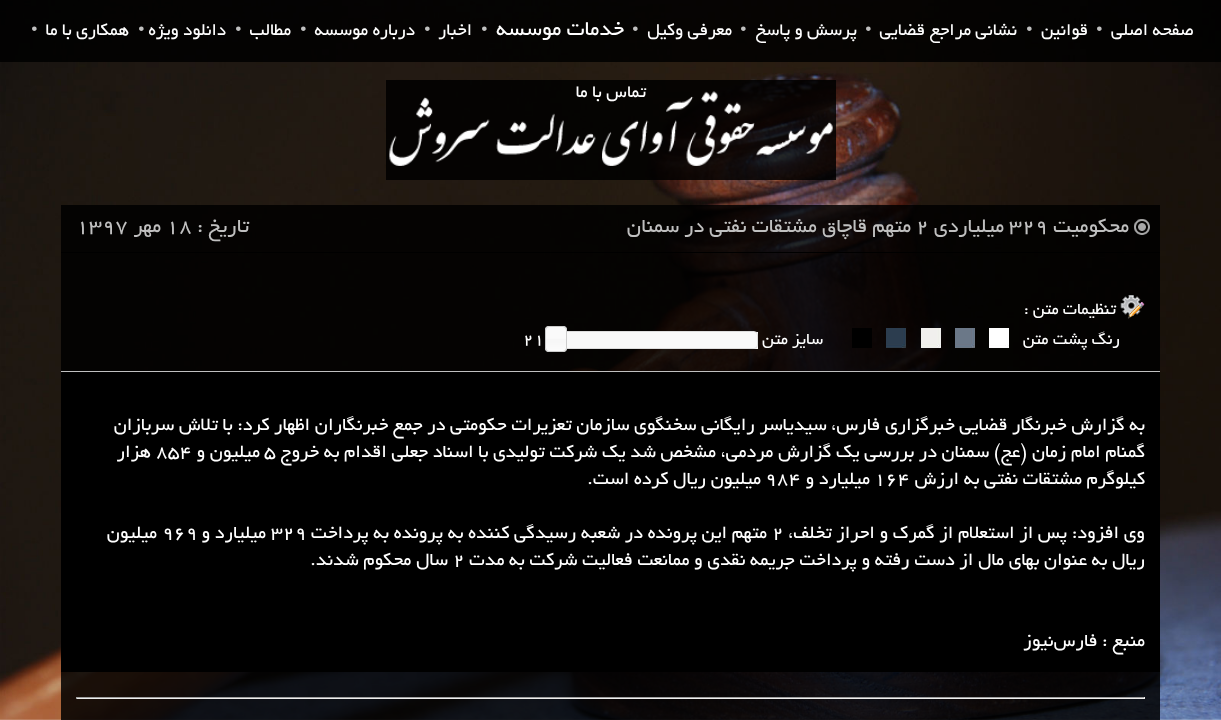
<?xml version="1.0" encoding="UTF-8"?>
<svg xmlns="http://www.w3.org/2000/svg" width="1221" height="720">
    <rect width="100%" height="100%" fill="#FFFFFF"/>
    <image x="0" y="0" width="1221" height="720" href="img_01.png"/>
    <rect x="0" y="0" width="1221" height="62" fill="#000000" fill-opacity="0.85"/>
    <text x="1194" y="35" font-family="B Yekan" font-size="19" direction="rtl" fill="#FFFFFF">صفحه اصلی</text>
    <text x="1096" y="35" font-family="Liberation Serif" font-size="19" fill="#C0C0C0">•</text>
    <text x="1088" y="35" font-family="B Yekan" font-size="19" direction="rtl" fill="#FFFFFF">قوانین</text>
    <text x="1026" y="35" font-family="Liberation Serif" font-size="19" fill="#C0C0C0">•</text>
    <text x="1017" y="35" font-family="B Yekan" font-size="19" direction="rtl" fill="#FFFFFF">نشانی مراجع قضایی</text>
    <text x="865" y="35" font-family="Liberation Serif" font-size="19" fill="#C0C0C0">•</text>
    <text x="857" y="35" font-family="B Yekan" font-size="19" direction="rtl" fill="#FFFFFF">پرسش و پاسخ</text>
    <text x="740" y="35" font-family="Liberation Serif" font-size="19" fill="#C0C0C0">•</text>
    <text x="732" y="35" font-family="B Yekan" font-size="19" direction="rtl" fill="#FFFFFF">معرفی وکیل</text>
    <text x="632" y="35" font-family="Liberation Serif" font-size="19" fill="#C0C0C0">•</text>
    <text x="624" y="35" font-family="B Yekan" font-size="23" direction="rtl" fill="#FFFFFF">خدمات موسسه</text>
    <text x="481" y="35" font-family="Liberation Serif" font-size="19" fill="#C0C0C0">•</text>
    <text x="472" y="35" font-family="B Yekan" font-size="19" direction="rtl" fill="#FFFFFF">اخبار</text>
    <text x="424" y="35" font-family="Liberation Serif" font-size="19" fill="#C0C0C0">•</text>
    <text x="415" y="35" font-family="B Yekan" font-size="19" direction="rtl" fill="#FFFFFF">درباره موسسه</text>
    <text x="300" y="35" font-family="Liberation Serif" font-size="19" fill="#C0C0C0">•</text>
    <text x="291" y="35" font-family="B Yekan" font-size="19" direction="rtl" fill="#FFFFFF">مطالب</text>
    <text x="235" y="35" font-family="Liberation Serif" font-size="19" fill="#C0C0C0">•</text>
    <text x="226" y="35" font-family="B Yekan" font-size="19" direction="rtl" fill="#FFFFFF">دانلود ویژه</text>
    <text x="138" y="35" font-family="Liberation Serif" font-size="19" fill="#C0C0C0">•</text>
    <text x="129" y="35" font-family="B Yekan" font-size="19" direction="rtl" fill="#FFFFFF">همکاری با ما</text>
    <text x="31" y="35" font-family="Liberation Serif" font-size="19" fill="#C0C0C0">•</text>
    <rect x="386" y="80" width="450" height="100" fill="#000000" fill-opacity="0.85"/>
    <image x="389" y="91" width="444" height="75" href="img_02.png"/>
    <text x="646" y="97" font-family="B Yekan" font-size="19" direction="rtl" fill="#FFFFFF">تماس با ما</text>
    <rect x="61" y="205" width="1099" height="515" fill="#000000" fill-opacity="0.85"/>
    <rect x="61" y="252" width="1099" height="1" fill="#000000"/>
    <image x="1134" y="219" width="16" height="16" href="img_03.png"/>
    <text x="1129" y="232" font-family="B Yekan" font-size="22" direction="rtl" fill="#C0C0C0">محکومیت</text>
    <text x="1009" y="232" font-family="B Yekan" font-size="22" fill="#C0C0C0">329</text>
    <text x="1004" y="232" font-family="B Yekan" font-size="22" direction="rtl" fill="#C0C0C0">میلیاردی</text>
    <text x="916" y="232" font-family="B Yekan" font-size="22" fill="#C0C0C0">2</text>
    <text x="911" y="232" font-family="B Yekan" font-size="22" direction="rtl" fill="#C0C0C0">متهم قاچاق مشتقات نفتی در سمنان</text>
    <text x="249" y="232" font-family="B Yekan" font-size="22" direction="rtl" fill="#C0C0C0">تاریخ :</text>
    <text x="166" y="232" font-family="B Yekan" font-size="22" fill="#C0C0C0">18</text>
    <text x="161" y="232" font-family="B Yekan" font-size="22" direction="rtl" fill="#C0C0C0">مهر</text>
    <text x="76" y="232" font-family="B Yekan" font-size="22" fill="#C0C0C0">1397</text>
    <rect x="61" y="371" width="1099" height="1" fill="#C0C0C0"/>
    <image x="1120" y="295" width="25" height="24" href="img_04.png"/>
    <text x="1116" y="314" font-family="B Yekan" font-size="18" direction="rtl" fill="#FFFFFF">تنظیمات متن :</text>
    <text x="1120" y="344" font-family="B Yekan" font-size="18" direction="rtl" fill="#FFFFFF">رنگ پشت متن</text>
    <image x="989" y="328" width="20" height="20" href="img_05.png"/>
    <image x="955" y="328" width="20" height="20" href="img_06.png"/>
    <image x="921" y="328" width="20" height="20" href="img_07.png"/>
    <image x="886" y="328" width="20" height="20" href="img_08.png"/>
    <rect x="852" y="328" width="20" height="20" fill="#000000"/>
    <text x="823" y="344" font-family="B Yekan" font-size="18" direction="rtl" fill="#FFFFFF">سایز متن</text>
    <rect x="567" y="332" width="191" height="17" fill="#F9F9F9"/>
    <rect x="556.5" y="331.5" width="201" height="17" rx="3.5" fill="none" stroke="#DDDDDD"/>
    <image x="545" y="326" width="22" height="26" href="img_09.png"/>
    <rect x="545.5" y="326.5" width="21" height="25" rx="3.5" fill="none" stroke="#CCCCCC"/>
    <text x="523" y="344" font-family="B Yekan" font-size="18" fill="#FFFFFF">21</text>
    <rect x="61" y="372" width="1099" height="300" fill="#000000"/>
    <text font-family="B Yekan" font-size="20" direction="rtl" fill="#FFFFFF">
        <tspan x="1145" y="430">به گزارش خبرنگار قضایی خبرگزاری فارس، سیدیاسر رایگانی سخنگوی سازمان تعزیرات حکومتی در جمع خبرنگاران اظهار کرد: با تلاش سربازان</tspan>
        <tspan x="1145" y="457">گمنام امام زمان (عج) سمنان در بررسی یک گزارش مردمی، مشخص شد یک شرکت تولیدی با اسناد جعلی اقدام به خروج</tspan>
    </text>
    <text x="264" y="457" font-family="B Yekan" font-size="20" fill="#FFFFFF">۵</text>
    <text x="260" y="457" font-family="B Yekan" font-size="20" direction="rtl" fill="#FFFFFF">میلیون و</text>
    <text x="156" y="457" font-family="B Yekan" font-size="20" fill="#FFFFFF">۸۵۴</text>
    <text x="151" y="457" font-family="B Yekan" font-size="20" direction="rtl" fill="#FFFFFF">هزار</text>
    <text x="1145" y="484" font-family="B Yekan" font-size="20" direction="rtl" fill="#FFFFFF">کیلوگرم مشتقات نفتی به ارزش</text>
    <text x="874" y="484" font-family="B Yekan" font-size="20" fill="#FFFFFF">۱۶۴</text>
    <text x="870" y="484" font-family="B Yekan" font-size="20" direction="rtl" fill="#FFFFFF">میلیارد و</text>
    <text x="765" y="484" font-family="B Yekan" font-size="20" fill="#FFFFFF">۹۸۴</text>
    <text x="761" y="484" font-family="B Yekan" font-size="20" direction="rtl" fill="#FFFFFF">میلیون ریال کرده است.</text>
    <text x="1145" y="538" font-family="B Yekan" font-size="20" direction="rtl" fill="#FFFFFF">وی افزود: پس از استعلام از گمرک و احراز تخلف،</text>
    <text x="772" y="538" font-family="B Yekan" font-size="20" fill="#FFFFFF">۲</text>
    <text x="767" y="538" font-family="B Yekan" font-size="20" direction="rtl" fill="#FFFFFF">متهم این پرونده در شعبه رسیدگی کننده به پرونده به پرداخت</text>
    <text x="271" y="538" font-family="B Yekan" font-size="20" fill="#FFFFFF">۳۲۹</text>
    <text x="266" y="538" font-family="B Yekan" font-size="20" direction="rtl" fill="#FFFFFF">میلیارد و</text>
    <text x="162" y="538" font-family="B Yekan" font-size="20" fill="#FFFFFF">۹۶۹</text>
    <text x="157" y="538" font-family="B Yekan" font-size="20" direction="rtl" fill="#FFFFFF">میلیون</text>
    <text x="1145" y="565" font-family="B Yekan" font-size="20" direction="rtl" fill="#FFFFFF">ریال به عنوان بهای مال از دست رفته و پرداخت جریمه نقدی و ممانعت فعالیت شرکت به مدت</text>
    <text x="453" y="565" font-family="B Yekan" font-size="20" fill="#FFFFFF">۲</text>
    <text x="448" y="565" font-family="B Yekan" font-size="20" direction="rtl" fill="#FFFFFF">سال محکوم شدند.</text>
    <text x="1145" y="646" font-family="B Yekan" font-size="20" direction="rtl" fill="#FFFFFF">منبع : فارس‌نیوز</text>
    <rect x="76" y="697" width="1069" height="1" fill="#9F9F9F"/>
    <rect x="1144" y="697" width="1" height="2" fill="#EEEEEE"/>
    <rect x="76" y="698" width="1069" height="1" fill="#EEEEEE"/>
    <rect x="76" y="697" width="1" height="2" fill="#9F9F9F"/>
</svg>
